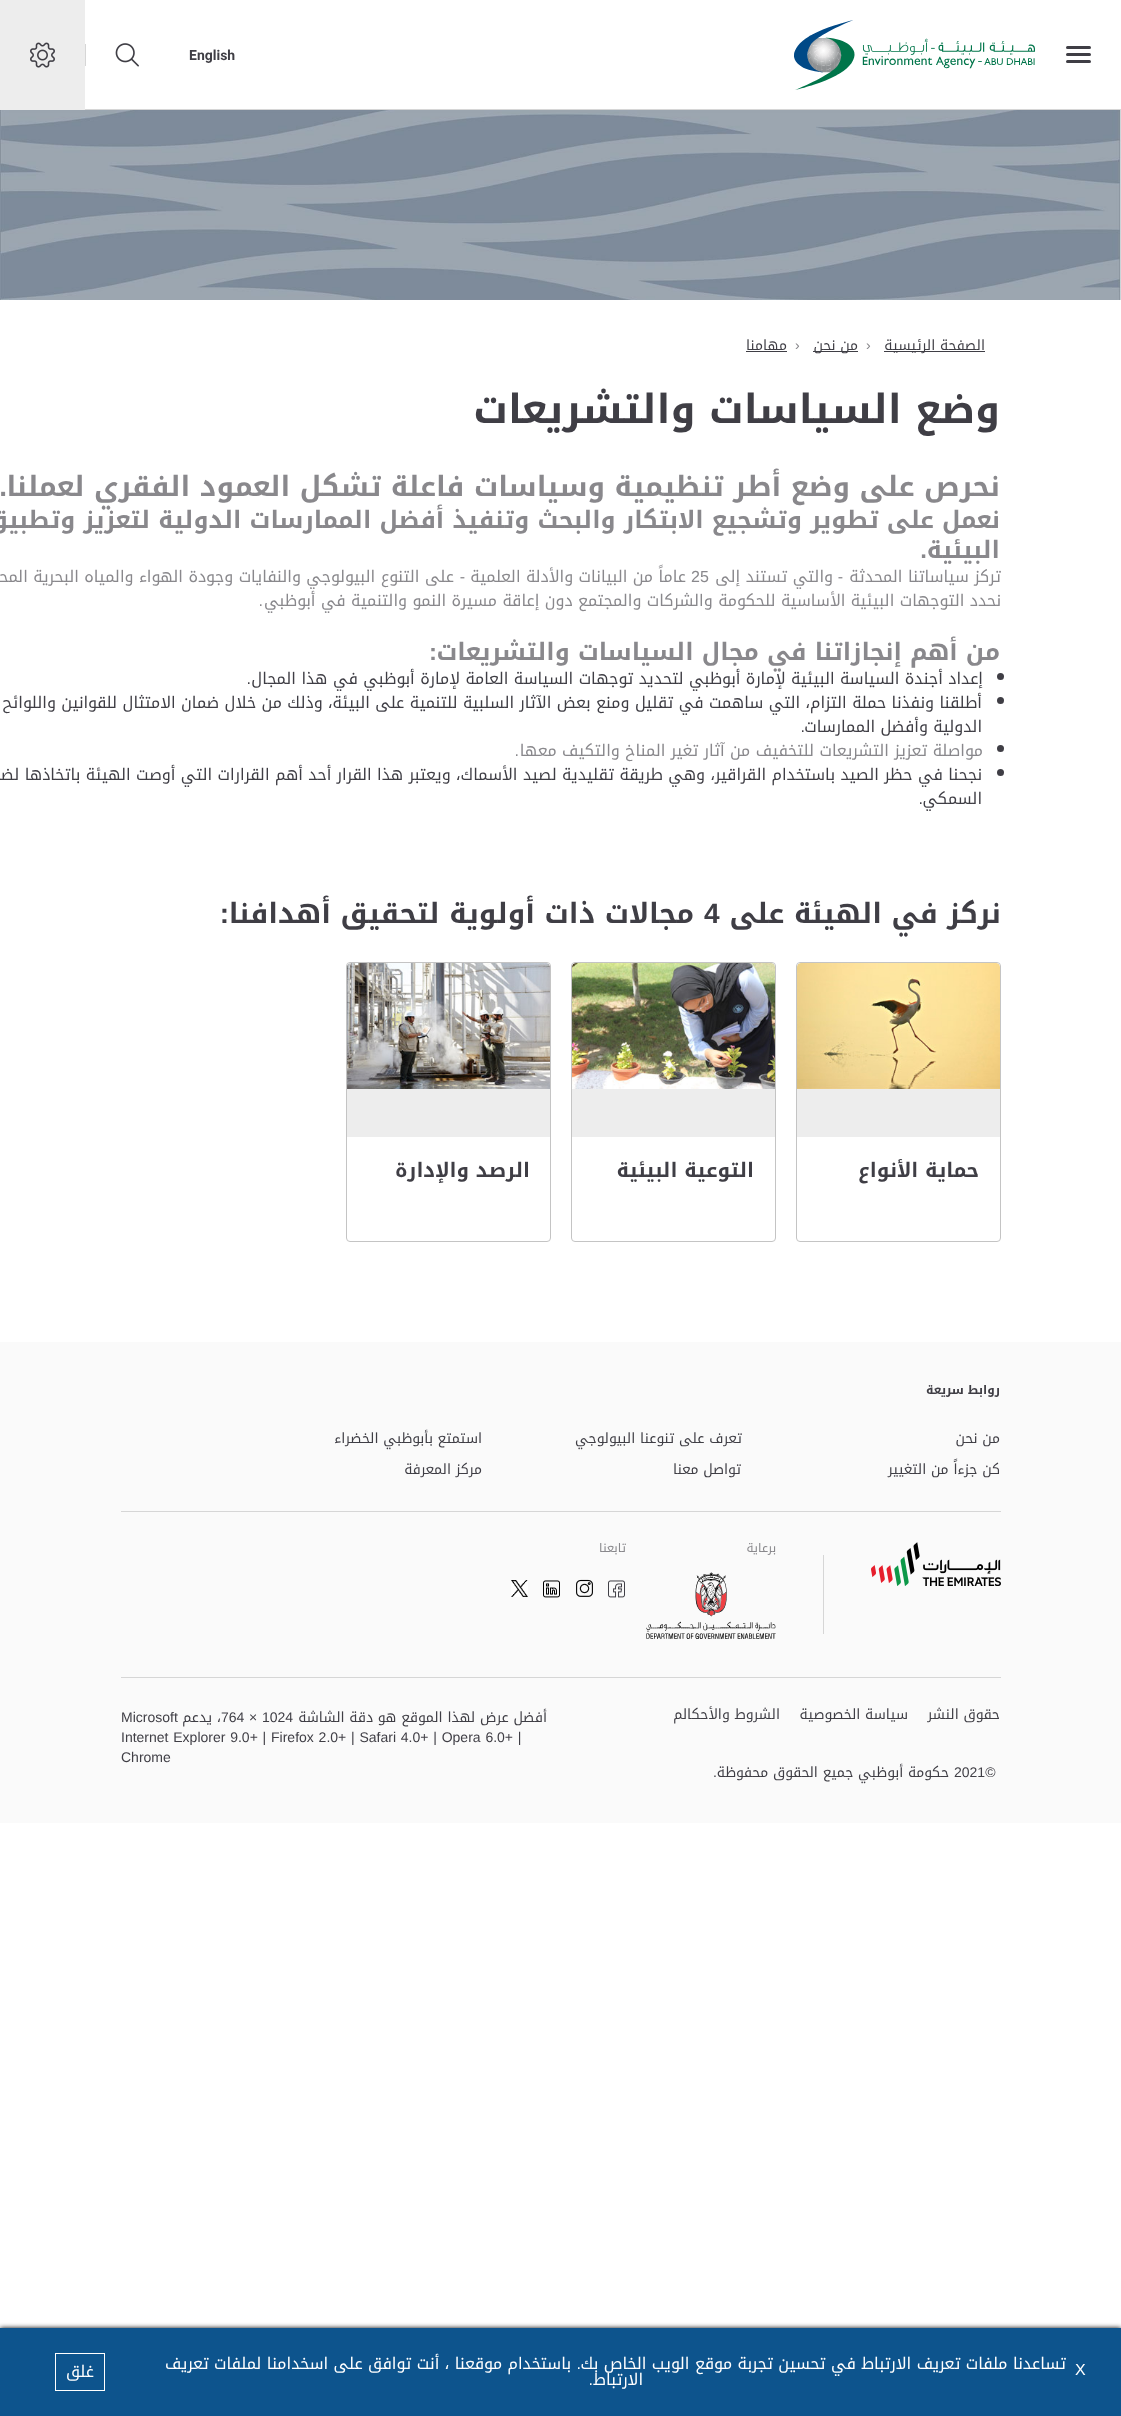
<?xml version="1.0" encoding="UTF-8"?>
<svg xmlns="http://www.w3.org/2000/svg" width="1121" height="2416">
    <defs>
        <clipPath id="clip1"><rect x="797" y="963" width="203" height="278" rx="3"/></clipPath>
        <clipPath id="clip2"><rect x="572" y="963" width="203" height="278" rx="3"/></clipPath>
        <clipPath id="clip3"><rect x="347" y="963" width="203" height="278" rx="3"/></clipPath>
        <filter id="blur1" x="-50%" y="-200%" width="200%" height="500%"><feGaussianBlur stdDeviation="2.5"/></filter>
    </defs>
    <rect width="100%" height="100%" fill="#FFFFFF"/>
    <rect x="85" y="109" width="1036" height="1" fill="#D6D6D6"/>
    <rect x="1066" y="60" width="25" height="3" rx="1.5" fill="#3F3E45"/>
    <rect x="1066" y="46" width="25" height="3" rx="1.5" fill="#3F3E45"/>
    <rect x="1066" y="53" width="25" height="3" rx="1.5" fill="#3F3E45"/>
    <image x="794" y="20" width="241" height="70" href="img_01.png"/>
    <text x="189" y="60" font-family="Roboto" font-size="14" font-weight="700" fill="#3F3E45">English</text>
    <image x="115" y="43" width="24" height="24" href="img_02.png"/>
    <rect x="85" y="44" width="1" height="22" fill="#D6D6D6"/>
    <rect x="0" y="0" width="85" height="110" fill="#EDEDED"/>
    <image x="30" y="42" width="25" height="26" href="img_03.png"/>
    <image x="0" y="110" width="1121" height="190" href="img_04.png"/>
    <rect x="884" y="351" width="101" height="1" fill="#3F3E45"/>
    <text x="985" y="350" font-family="Noto Kufi Arabic" font-size="14" direction="rtl" fill="#3F3E45">الصفحة الرئيسية</text>
    <text x="866" y="350" font-family="Liberation Sans" font-size="14" fill="#89888C">›</text>
    <rect x="813" y="351" width="45" height="1" fill="#3F3E45"/>
    <text x="858" y="350" font-family="Noto Kufi Arabic" font-size="14" direction="rtl" fill="#3F3E45">من نحن</text>
    <text x="795" y="350" font-family="Liberation Sans" font-size="14" fill="#89888C">›</text>
    <text x="787" y="350" font-family="Noto Kufi Arabic" font-size="14" direction="rtl" fill="#3F3E45">مهامنا</text>
    <rect x="746" y="351" width="41" height="1" fill="#3F3E45"/>
    <text x="1000" y="423" font-family="Noto Kufi Arabic" font-size="40" font-weight="700" direction="rtl" fill="#3F3E45">وضع السياسات والتشريعات</text>
    <text x="1000" y="496" font-family="Noto Kufi Arabic" font-size="28" font-weight="700" direction="rtl" fill="#89888C">نحرص على وضع أطر تنظيمية وسياسات فاعلة تشكل العمود الفقري لعملنا</text>
    <text x="7" y="496" font-family="Liberation Sans" font-size="28" font-weight="700" direction="rtl" fill="#89888C">.</text>
    <text font-family="Noto Kufi Arabic" font-size="24" font-weight="700" direction="rtl" fill="#89888C">
        <tspan x="1000" y="528">نعمل على تطوير وتشجيع الابتكار والبحث وتنفيذ أفضل الممارسات الدولية لتعزيز وتطبيق القوانين</tspan>
        <tspan x="1000" y="558">البيئية</tspan>
    </text>
    <text x="927" y="558" font-family="Liberation Sans" font-size="24" font-weight="700" direction="rtl" fill="#89888C">.</text>
    <text x="1001" y="582" font-family="Noto Kufi Arabic" font-size="16" direction="rtl" fill="#89888C">تركز سياساتنا المحدثة</text>
    <text x="843" y="582" font-family="Liberation Sans" font-size="16" direction="rtl" fill="#89888C">-</text>
    <text x="833" y="582" font-family="Noto Kufi Arabic" font-size="16" direction="rtl" fill="#89888C">والتي تستند إلى</text>
    <text x="691" y="582" font-family="Liberation Sans" font-size="16" fill="#89888C">25</text>
    <text x="686" y="582" font-family="Noto Kufi Arabic" font-size="16" direction="rtl" fill="#89888C">عاماً من البيانات والأدلة العلمية</text>
    <text x="465" y="582" font-family="Liberation Sans" font-size="16" direction="rtl" fill="#89888C">-</text>
    <text x="454" y="582" font-family="Noto Kufi Arabic" font-size="16" direction="rtl" fill="#89888C">على التنوع البيولوجي والنفايات وجودة الهواء والمياه البحرية المحيطة</text>
    <text x="1001" y="606" font-family="Noto Kufi Arabic" font-size="16" direction="rtl" fill="#89888C">نحدد التوجهات البيئية الأساسية للحكومة والشركات والمجتمع دون إعاقة مسيرة النمو والتنمية في أبوظبي</text>
    <text x="263" y="606" font-family="Liberation Sans" font-size="16" direction="rtl" fill="#89888C">.</text>
    <text x="1000" y="660" font-family="Noto Kufi Arabic" font-size="24" font-weight="700" direction="rtl" fill="#89888C">من أهم إنجازاتنا في مجال السياسات والتشريعات</text>
    <text x="437" y="660" font-family="Liberation Sans" font-size="24" font-weight="700" direction="rtl" fill="#89888C">:</text>
    <circle cx="1000.5" cy="676.5" r="3.5" fill="#3F3E45"/>
    <text x="983" y="684" font-family="Noto Kufi Arabic" font-size="16" direction="rtl" fill="#3F3E45">إعداد أجندة السياسة البيئية لإمارة أبوظبي لتحديد توجهات السياسة العامة لإمارة أبوظبي في هذا المجال</text>
    <text x="251" y="684" font-family="Liberation Sans" font-size="16" direction="rtl" fill="#3F3E45">.</text>
    <circle cx="1000.5" cy="700.5" r="3.5" fill="#3F3E45"/>
    <text font-family="Noto Kufi Arabic" font-size="16" direction="rtl" fill="#3F3E45">
        <tspan x="982" y="708">أطلقنا ونفذنا حملة التزام، التي ساهمت في تقليل ومنع بعض الآثار السلبية للتنمية على البيئة، وذلك من خلال ضمان الامتثال للقوانين واللوائح المحلية، والمعايير</tspan>
        <tspan x="982" y="732">الدولية وأفضل الممارسات</tspan>
    </text>
    <text x="805" y="732" font-family="Liberation Sans" font-size="16" direction="rtl" fill="#3F3E45">.</text>
    <circle cx="1000.5" cy="748.5" r="3.5" fill="#3F3E45"/>
    <text x="983" y="756" font-family="Noto Kufi Arabic" font-size="16" direction="rtl" fill="#89888C">مواصلة تعزيز التشريعات للتخفيف من آثار تغير المناخ والتكيف معها</text>
    <text x="519" y="756" font-family="Liberation Sans" font-size="16" direction="rtl" fill="#89888C">.</text>
    <circle cx="1000.5" cy="772.5" r="3.5" fill="#3F3E45"/>
    <text font-family="Noto Kufi Arabic" font-size="16" direction="rtl" fill="#3F3E45">
        <tspan x="982" y="780">نجحنا في حظر الصيد باستخدام القراقير، وهي طريقة تقليدية لصيد الأسماك، ويعتبر هذا القرار أحد أهم القرارات التي أوصت الهيئة باتخاذها لضمان تعافي المخزون</tspan>
        <tspan x="982" y="804">السمكي</tspan>
    </text>
    <text x="923" y="804" font-family="Liberation Sans" font-size="16" direction="rtl" fill="#3F3E45">.</text>
    <text x="1001" y="923" font-family="Noto Kufi Arabic" font-size="28" font-weight="700" direction="rtl" fill="#3F3E45">نركز في الهيئة على</text>
    <text x="704" y="923" font-family="Liberation Sans" font-size="28" font-weight="700" fill="#3F3E45">4</text>
    <text x="694" y="923" font-family="Noto Kufi Arabic" font-size="28" font-weight="700" direction="rtl" fill="#3F3E45">مجالات ذات أولوية لتحقيق أهدافنا</text>
    <text x="229" y="923" font-family="Liberation Sans" font-size="28" font-weight="700" direction="rtl" fill="#3F3E45">:</text>
    <rect x="796.5" y="962.5" width="204" height="279" rx="3.5" fill="none" stroke="#C4C4C4"/>
    <g clip-path="url(#clip1)">
        <path d="M 801 963 H 996 C 998 963 1000 965 1000 967 V 1137 H 797 V 967 C 797 965 799 963 801 963 Z" fill="#EDEDED"/>
    </g>
    <image x="797" y="963" width="203" height="126" href="img_05.png"/>
    <text x="979" y="1177" font-family="Noto Kufi Arabic" font-size="20" font-weight="700" direction="rtl" fill="#3F3E45">حماية الأنواع</text>
    <rect x="571.5" y="962.5" width="204" height="279" rx="3.5" fill="none" stroke="#C4C4C4"/>
    <g clip-path="url(#clip2)">
        <path d="M 576 963 H 771 C 773 963 775 965 775 967 V 1137 H 572 V 967 C 572 965 574 963 576 963 Z" fill="#EDEDED"/>
    </g>
    <image x="572" y="963" width="203" height="126" href="img_06.png"/>
    <text x="754" y="1177" font-family="Noto Kufi Arabic" font-size="20" font-weight="700" direction="rtl" fill="#3F3E45">التوعية البيئية</text>
    <rect x="346.5" y="962.5" width="204" height="279" rx="3.5" fill="none" stroke="#C4C4C4"/>
    <g clip-path="url(#clip3)">
        <path d="M 351 963 H 546 C 548 963 550 965 550 967 V 1137 H 347 V 967 C 347 965 349 963 351 963 Z" fill="#EDEDED"/>
    </g>
    <image x="347" y="963" width="203" height="126" href="img_07.png"/>
    <text x="530" y="1177" font-family="Noto Kufi Arabic" font-size="20" font-weight="700" direction="rtl" fill="#3F3E45">الرصد والإدارة</text>
    <rect x="0" y="1342" width="1121" height="481" fill="#FAFAFA"/>
    <text x="1000" y="1394" font-family="Noto Kufi Arabic" font-size="12" font-weight="700" direction="rtl" fill="#3F3E45">روابط سريعة</text>
    <text x="1000" y="1443" font-family="Noto Kufi Arabic" font-size="14" direction="rtl" fill="#3F3E45">من نحن</text>
    <text x="742" y="1443" font-family="Noto Kufi Arabic" font-size="14" direction="rtl" fill="#3F3E45">تعرف على تنوعنا البيولوجي</text>
    <text x="482" y="1443" font-family="Noto Kufi Arabic" font-size="14" direction="rtl" fill="#3F3E45">استمتع بأبوظبي الخضراء</text>
    <text x="1000" y="1474" font-family="Noto Kufi Arabic" font-size="14" direction="rtl" fill="#3F3E45">كن جزءاً من التغيير</text>
    <text x="741" y="1474" font-family="Noto Kufi Arabic" font-size="14" direction="rtl" fill="#3F3E45">تواصل معنا</text>
    <text x="482" y="1474" font-family="Noto Kufi Arabic" font-size="14" direction="rtl" fill="#3F3E45">مركز المعرفة</text>
    <rect x="121" y="1511" width="880" height="1" fill="#D6D6D6"/>
    <image x="871" y="1542" width="130" height="44" href="img_08.png"/>
    <rect x="823" y="1555" width="1" height="79" fill="#D6D6D6"/>
    <text x="776" y="1552" font-family="Noto Kufi Arabic" font-size="12" direction="rtl" fill="#89888C">برعاية</text>
    <image x="646" y="1572" width="130" height="67" href="img_09.png"/>
    <text x="626" y="1552" font-family="Noto Kufi Arabic" font-size="12" direction="rtl" fill="#89888C">تابعنا</text>
    <image x="608" y="1580" width="17" height="18" href="img_10.png"/>
    <image x="576" y="1579" width="17" height="18" href="img_11.png"/>
    <image x="543" y="1580" width="17" height="18" href="img_12.png"/>
    <image x="511" y="1580" width="17" height="17" href="img_13.png"/>
    <rect x="121" y="1677" width="880" height="1" fill="#D6D6D6"/>
    <text x="1000" y="1719" font-family="Noto Kufi Arabic" font-size="14" direction="rtl" fill="#3F3E45">حقوق النشر</text>
    <text x="908" y="1719" font-family="Noto Kufi Arabic" font-size="14" direction="rtl" fill="#3F3E45">سياسة الخصوصية</text>
    <text x="780" y="1719" font-family="Noto Kufi Arabic" font-size="14" direction="rtl" fill="#3F3E45">الشروط والأحكالم</text>
    <text x="954" y="1777" font-family="Liberation Sans" font-size="14" fill="#3F3E45">2021©</text>
    <text x="949" y="1777" font-family="Noto Kufi Arabic" font-size="14" direction="rtl" fill="#3F3E45">حكومة أبوظبي جميع الحقوق محفوظة</text>
    <text x="717" y="1777" font-family="Liberation Sans" font-size="14" direction="rtl" fill="#3F3E45">.</text>
    <text x="547" y="1722" font-family="Noto Kufi Arabic" font-size="14" direction="rtl" fill="#3F3E45">أفضل عرض لهذا الموقع هو دقة الشاشة</text>
    <text x="262" y="1722" font-family="Liberation Sans" font-size="14" fill="#3F3E45">1024</text>
    <text x="249" y="1722" font-family="Liberation Sans" font-size="14" fill="#3F3E45">×</text>
    <text x="221" y="1722" font-family="Liberation Sans" font-size="14" fill="#3F3E45">764</text>
    <text x="221" y="1722" font-family="Noto Kufi Arabic" font-size="14" direction="rtl" fill="#3F3E45">، يدعم</text>
    <text font-family="Liberation Sans" font-size="14" fill="#3F3E45">
        <tspan x="121" y="1722">Microsoft</tspan>
        <tspan x="121" y="1742" word-spacing="0.9">Internet Explorer 9.0+ | Firefox 2.0+ | Safari 4.0+ | Opera 6.0+ |</tspan>
        <tspan x="121" y="1762">Chrome</tspan>
    </text>
    <rect x="0" y="2328" width="1121" height="88" fill="#000000" filter="url(#blur1)"/>
    <rect x="0" y="2328" width="1121" height="88" fill="#0D548D"/>
    <text x="1075" y="2375" font-family="Liberation Sans" font-size="16" fill="#FFFFFF">X</text>
    <text x="1066" y="2369" font-family="Noto Kufi Arabic" font-size="16" direction="rtl" fill="#FFFFFF">تساعدنا ملفات تعريف الارتباط في تحسين تجربة موقع الويب الخاص بك</text>
    <text x="581" y="2369" font-family="Liberation Sans" font-size="16" direction="rtl" fill="#FFFFFF">.</text>
    <text x="571" y="2369" font-family="Noto Kufi Arabic" font-size="16" direction="rtl" fill="#FFFFFF">باستخدام موقعنا ، أنت توافق على اسخدامنا لملفات تعريف</text>
    <text x="643" y="2385" font-family="Noto Kufi Arabic" font-size="16" direction="rtl" fill="#FFFFFF">الارتباط</text>
    <text x="593" y="2385" font-family="Liberation Sans" font-size="16" direction="rtl" fill="#FFFFFF">.</text>
    <rect x="55.5" y="2353.5" width="49" height="37" fill="none" stroke="#FFFFFF"/>
    <text x="94" y="2377" font-family="Noto Kufi Arabic" font-size="16" direction="rtl" fill="#FFFFFF">غلق</text>
</svg>
